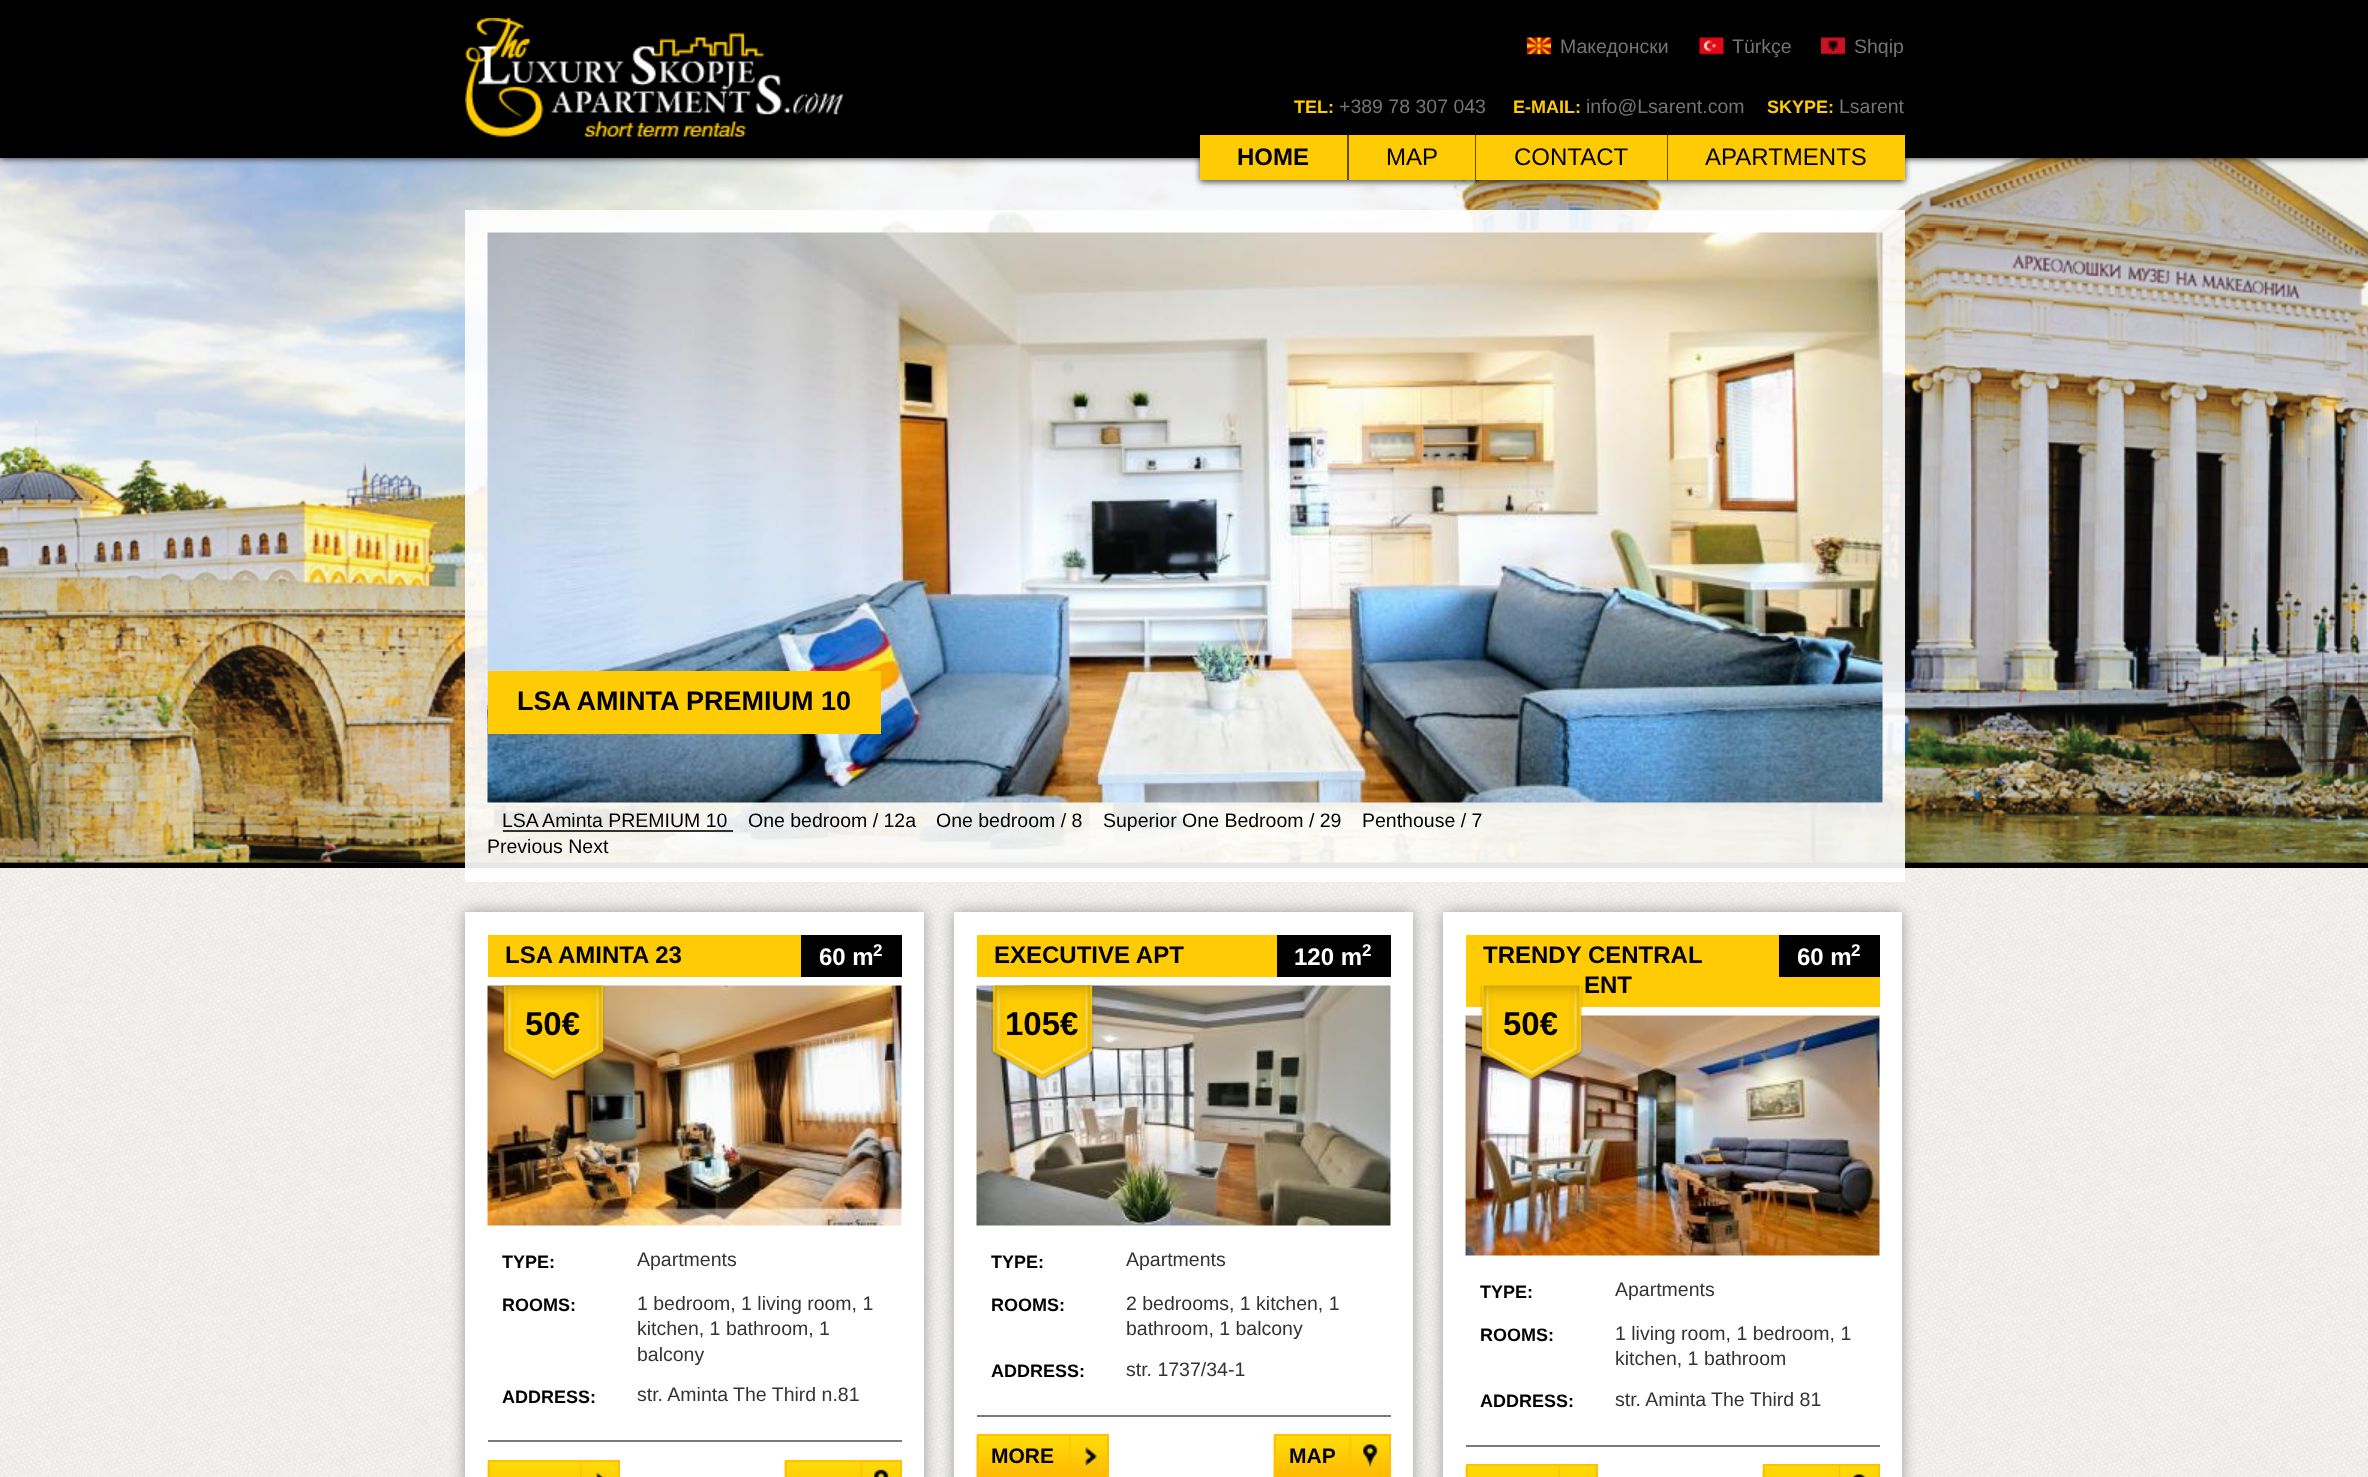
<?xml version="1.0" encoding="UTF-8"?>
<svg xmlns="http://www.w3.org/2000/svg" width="2368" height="1477">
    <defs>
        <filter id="blur1" x="-50%" y="-200%" width="200%" height="500%"><feGaussianBlur stdDeviation="3"/></filter>
        <filter id="blur2" x="-50%" y="-200%" width="200%" height="500%"><feGaussianBlur stdDeviation="7.5"/></filter>
    </defs>
    <rect width="100%" height="100%" fill="#FFFFFF"/>
    <image x="0" y="868" width="2368" height="609" href="img_01.png"/>
    <image x="0" y="862" width="2368" height="1" href="img_06.png"/>
    <image x="0" y="158" width="2368" height="705" href="img_07.png"/>
    <rect x="0" y="2" width="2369" height="157" fill="#000000" fill-opacity="0.7" filter="url(#blur1)"/>
    <rect x="0" y="0" width="2368" height="158" fill="#000000"/>
    <image x="465" y="18" width="378" height="119" href="img_02.png"/>
    <image x="1527" y="37" width="24" height="18" href="img_03.png"/>
    <text x="1560" y="53" font-family="Liberation Sans" font-size="19.5" fill="#757575">Македонски</text>
    <image x="1699" y="37" width="25" height="18" href="img_04.png"/>
    <text x="1732" y="53" font-family="Liberation Sans" font-size="19.5" fill="#757575">Türkçe</text>
    <image x="1821" y="37" width="24" height="18" href="img_05.png"/>
    <text x="1854" y="53" font-family="Liberation Sans" font-size="19.5" fill="#757575">Shqip</text>
    <text x="1294" y="113" font-family="Liberation Sans" font-size="18" font-weight="700" fill="#FFCB05">TEL:</text>
    <text x="1339" y="113" font-family="Liberation Sans" font-size="19.5" fill="#757575">+389 78 307 043</text>
    <text x="1513" y="113" font-family="Liberation Sans" font-size="18" font-weight="700" fill="#FFCB05">E-MAIL:</text>
    <text x="1586" y="113" font-family="Liberation Sans" font-size="19.5" fill="#757575">info@Lsarent.com</text>
    <text x="1767" y="113" font-family="Liberation Sans" font-size="18" font-weight="700" fill="#FFCB05">SKYPE:</text>
    <text x="1839" y="113" font-family="Liberation Sans" font-size="19.5" fill="#757575">Lsarent</text>
    <rect x="1200" y="137" width="705" height="45" fill="#000000" fill-opacity="0.7" filter="url(#blur1)"/>
    <rect x="1200" y="135" width="147" height="45" fill="#FFCB05"/>
    <rect x="1347" y="135" width="2" height="45" fill="#5F4B00"/>
    <text x="1237" y="165" font-family="Liberation Sans" font-size="24" font-weight="700" fill="#000000">HOME</text>
    <rect x="1349" y="135" width="126" height="45" fill="#FFCB05"/>
    <rect x="1475" y="135" width="1" height="45" fill="#5F4B00"/>
    <text x="1386" y="165" font-family="Liberation Sans" font-size="24" fill="#000000">MAP</text>
    <rect x="1476" y="135" width="191" height="45" fill="#FFCB05"/>
    <rect x="1667" y="135" width="1" height="45" fill="#5F4B00"/>
    <text x="1514" y="165" font-family="Liberation Sans" font-size="24" fill="#000000">CONTACT</text>
    <rect x="1668" y="135" width="237" height="45" fill="#FFCB05"/>
    <text x="1705" y="165" font-family="Liberation Sans" font-size="24" fill="#000000">APARTMENTS</text>
    <rect x="0" y="863" width="2368" height="5" fill="#000000"/>
    <rect x="465" y="210" width="1440" height="672" fill="#FFFFFF" fill-opacity="0.9"/>
    <image x="487" y="232" width="1396" height="571" href="img_08.png"/>
    <rect x="488" y="671" width="393" height="63" fill="#FFCB05"/>
    <text x="517" y="710" font-family="Liberation Sans" font-size="27" font-weight="700" fill="#000000">LSA AMINTA PREMIUM 10</text>
    <text x="502" y="827" font-family="Liberation Sans" font-size="19.5" fill="#000000">LSA Aminta PREMIUM 10</text>
    <rect x="503" y="830" width="230" height="2" fill="#333333"/>
    <text x="748" y="827" font-family="Liberation Sans" font-size="19.5" fill="#000000">One bedroom / 12a</text>
    <text x="936" y="827" font-family="Liberation Sans" font-size="19.5" fill="#000000">One bedroom / 8</text>
    <text x="1103" y="827" font-family="Liberation Sans" font-size="19.5" fill="#000000">Superior One Bedroom / 29</text>
    <text x="1362" y="827" font-family="Liberation Sans" font-size="19.5" fill="#000000">Penthouse / 7</text>
    <text x="487" y="853" font-family="Liberation Sans" font-size="19.5" fill="#000000">Previous Next</text>
    <rect x="465" y="912" width="459" height="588" fill="#999999" filter="url(#blur2)"/>
    <rect x="465" y="912" width="459" height="565" fill="#FFFFFF"/>
    <rect x="488" y="935" width="313" height="42" fill="#FFCB05"/>
    <text x="505" y="963" font-family="Liberation Sans" font-size="24" font-weight="700" fill="#000000">LSA AMINTA 23</text>
    <rect x="801" y="935" width="101" height="42" fill="#000000"/>
    <text x="819" y="965" font-family="Liberation Sans" font-size="24" font-weight="700" fill="#FFFFFF">60 m</text>
    <text x="873" y="956" font-family="Liberation Sans" font-size="17" font-weight="700" fill="#FFFFFF">2</text>
    <image x="487" y="985" width="415" height="241" href="img_09.png"/>
    <image x="502" y="985" width="103" height="97" href="img_10.png"/>
    <text x="525" y="1035" font-family="Liberation Sans" font-size="33" font-weight="700" fill="#000000">50€</text>
    <text x="502" y="1268" font-family="Liberation Sans" font-size="18" font-weight="700" fill="#000000">TYPE:</text>
    <text x="637" y="1266" font-family="Liberation Sans" font-size="19.5" fill="#333333">Apartments</text>
    <text x="502" y="1311" font-family="Liberation Sans" font-size="18" font-weight="700" fill="#000000">ROOMS:</text>
    <text font-family="Liberation Sans" font-size="19.5" fill="#333333">
        <tspan x="637" y="1310">1 bedroom, 1 living room, 1</tspan>
        <tspan x="637" y="1335">kitchen, 1 bathroom, 1</tspan>
        <tspan x="637" y="1361">balcony</tspan>
    </text>
    <text x="502" y="1403" font-family="Liberation Sans" font-size="18" font-weight="700" fill="#000000">ADDRESS:</text>
    <text x="637" y="1401" font-family="Liberation Sans" font-size="19.5" fill="#333333">str. Aminta The Third n.81</text>
    <rect x="488" y="1440" width="414" height="2" fill="#7A7A7A"/>
    <image x="487" y="1461" width="131" height="16" href="img_11.png"/>
    <rect x="489" y="1461" width="130" height="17" fill="none" stroke="#FFC004" stroke-width="2"/>
    <image x="784" y="1461" width="116" height="16" href="img_12.png"/>
    <rect x="786" y="1461" width="115" height="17" fill="none" stroke="#FFC004" stroke-width="2"/>
    <rect x="954" y="912" width="459" height="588" fill="#999999" filter="url(#blur2)"/>
    <rect x="954" y="912" width="459" height="565" fill="#FFFFFF"/>
    <rect x="977" y="935" width="300" height="42" fill="#FFCB05"/>
    <text x="994" y="963" font-family="Liberation Sans" font-size="24" font-weight="700" fill="#000000">EXECUTIVE APT</text>
    <rect x="1277" y="935" width="114" height="42" fill="#000000"/>
    <text x="1294" y="965" font-family="Liberation Sans" font-size="24" font-weight="700" fill="#FFFFFF">120 m</text>
    <text x="1362" y="956" font-family="Liberation Sans" font-size="17" font-weight="700" fill="#FFFFFF">2</text>
    <image x="976" y="985" width="415" height="241" href="img_13.png"/>
    <image x="991" y="985" width="103" height="97" href="img_14.png"/>
    <text x="1005" y="1035" font-family="Liberation Sans" font-size="33" font-weight="700" fill="#000000">105€</text>
    <text x="991" y="1268" font-family="Liberation Sans" font-size="18" font-weight="700" fill="#000000">TYPE:</text>
    <text x="1126" y="1266" font-family="Liberation Sans" font-size="19.5" fill="#333333">Apartments</text>
    <text x="991" y="1311" font-family="Liberation Sans" font-size="18" font-weight="700" fill="#000000">ROOMS:</text>
    <text font-family="Liberation Sans" font-size="19.5" fill="#333333">
        <tspan x="1126" y="1310">2 bedrooms, 1 kitchen, 1</tspan>
        <tspan x="1126" y="1335">bathroom, 1 balcony</tspan>
    </text>
    <text x="991" y="1377" font-family="Liberation Sans" font-size="18" font-weight="700" fill="#000000">ADDRESS:</text>
    <text x="1126" y="1376" font-family="Liberation Sans" font-size="19.5" fill="#333333">str. 1737/34-1</text>
    <rect x="977" y="1415" width="414" height="2" fill="#7A7A7A"/>
    <image x="976" y="1435" width="131" height="42" href="img_15.png"/>
    <rect x="978" y="1435" width="130" height="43" fill="none" stroke="#FFC004" stroke-width="2"/>
    <text x="991" y="1463" font-family="Liberation Sans" font-size="21" font-weight="700" fill="#000000">MORE</text>
    <image x="1273" y="1435" width="116" height="42" href="img_16.png"/>
    <rect x="1275" y="1435" width="115" height="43" fill="none" stroke="#FFC004" stroke-width="2"/>
    <text x="1289" y="1463" font-family="Liberation Sans" font-size="21" font-weight="700" fill="#000000">MAP</text>
    <rect x="1443" y="912" width="459" height="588" fill="#999999" filter="url(#blur2)"/>
    <rect x="1443" y="912" width="459" height="565" fill="#FFFFFF"/>
    <rect x="1466" y="935" width="414" height="72" fill="#FFCB05"/>
    <text x="1483" y="963" font-family="Liberation Sans" font-size="24" font-weight="700" fill="#000000">TRENDY CENTRAL</text>
    <text x="1584" y="993" font-family="Liberation Sans" font-size="24" font-weight="700" fill="#000000">ENT</text>
    <rect x="1779" y="935" width="101" height="42" fill="#000000"/>
    <text x="1797" y="965" font-family="Liberation Sans" font-size="24" font-weight="700" fill="#FFFFFF">60 m</text>
    <text x="1851" y="956" font-family="Liberation Sans" font-size="17" font-weight="700" fill="#FFFFFF">2</text>
    <image x="1465" y="1015" width="415" height="241" href="img_18.png"/>
    <image x="1480" y="985" width="103" height="97" href="img_17.png"/>
    <text x="1503" y="1035" font-family="Liberation Sans" font-size="33" font-weight="700" fill="#000000">50€</text>
    <text x="1480" y="1298" font-family="Liberation Sans" font-size="18" font-weight="700" fill="#000000">TYPE:</text>
    <text x="1615" y="1296" font-family="Liberation Sans" font-size="19.5" fill="#333333">Apartments</text>
    <text x="1480" y="1341" font-family="Liberation Sans" font-size="18" font-weight="700" fill="#000000">ROOMS:</text>
    <text font-family="Liberation Sans" font-size="19.5" fill="#333333">
        <tspan x="1615" y="1340">1 living room, 1 bedroom, 1</tspan>
        <tspan x="1615" y="1365">kitchen, 1 bathroom</tspan>
    </text>
    <text x="1480" y="1407" font-family="Liberation Sans" font-size="18" font-weight="700" fill="#000000">ADDRESS:</text>
    <text x="1615" y="1406" font-family="Liberation Sans" font-size="19.5" fill="#333333">str. Aminta The Third 81</text>
    <rect x="1466" y="1445" width="414" height="2" fill="#7A7A7A"/>
    <image x="1465" y="1465" width="131" height="12" href="img_19.png"/>
    <rect x="1467" y="1465" width="130" height="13" fill="none" stroke="#FFC004" stroke-width="2"/>
    <image x="1762" y="1465" width="116" height="12" href="img_20.png"/>
    <rect x="1764" y="1465" width="115" height="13" fill="none" stroke="#FFC004" stroke-width="2"/>
</svg>
